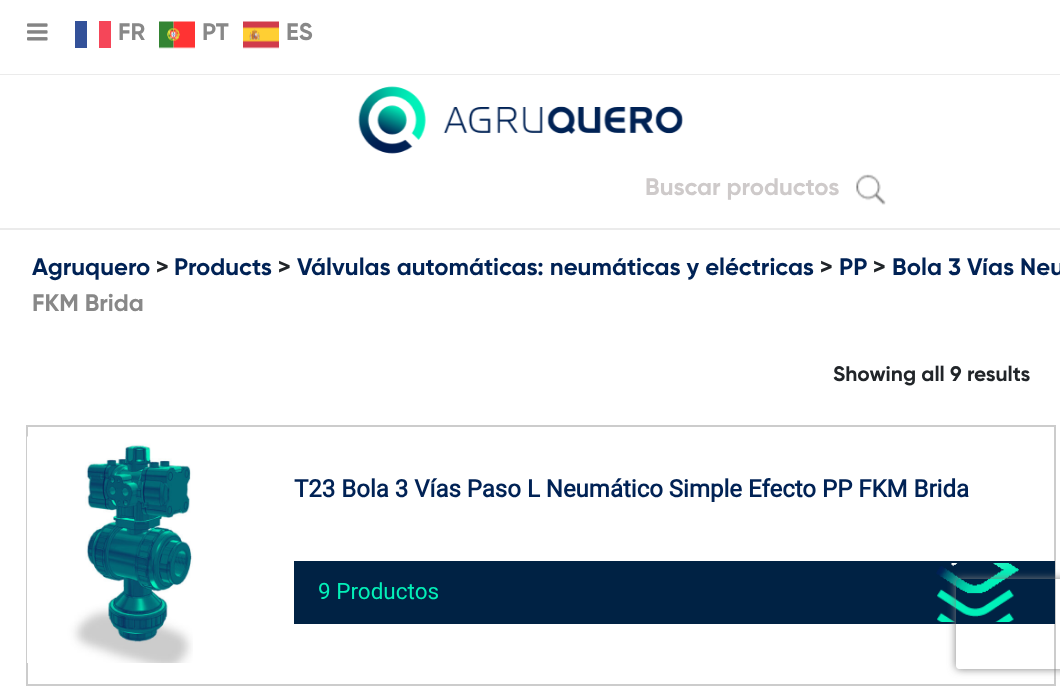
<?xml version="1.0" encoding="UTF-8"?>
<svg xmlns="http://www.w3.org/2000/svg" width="1060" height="689">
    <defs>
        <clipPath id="clip1"><path d="M 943 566 H 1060 V 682 H 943 Z M 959 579 H 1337 C 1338.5 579 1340 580.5 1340 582 V 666 C 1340 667.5 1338.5 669 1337 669 H 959 C 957.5 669 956 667.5 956 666 V 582 C 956 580.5 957.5 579 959 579 Z" clip-rule="evenodd"/></clipPath>
        <filter id="blur1" x="-50%" y="-200%" width="200%" height="500%"><feGaussianBlur stdDeviation="4"/></filter>
    </defs>
    <rect width="100%" height="100%" fill="#FFFFFF"/>
    <rect x="0" y="74" width="1060" height="1" fill="#EBEBEB"/>
    <image x="27" y="23" width="21" height="18" href="img_01.png"/>
    <text x="118" y="40" font-family="Gilroy" font-size="24" font-weight="700" fill="#888888">FR</text>
    <rect x="75" y="21" width="12" height="27" fill="#335199"/>
    <rect x="99" y="21" width="12" height="27" fill="#F54659"/>
    <image x="159" y="21" width="36" height="28" href="img_02.png"/>
    <text x="202" y="40" font-family="Gilroy" font-size="24" font-weight="700" fill="#888888">PT</text>
    <image x="243" y="21" width="36" height="28" href="img_03.png"/>
    <text x="286" y="40" font-family="Gilroy" font-size="24" font-weight="700" fill="#888888">ES</text>
    <rect x="0" y="228" width="1060" height="2" fill="#EBEBEB"/>
    <image x="358" y="86" width="325" height="68" href="img_04.png"/>
    <text x="645" y="195" font-family="Gilroy" font-size="24" font-weight="700" fill="#CECACA">Buscar productos</text>
    <image x="856" y="174" width="30" height="31" href="img_05.png"/>
    <text x="32" y="275" font-family="Gilroy" font-size="24" font-weight="700" fill="#002255">Agruquero</text>
    <text x="156" y="275" font-family="Gilroy" font-size="24" font-weight="700" fill="#212529">&gt;</text>
    <text x="174" y="275" font-family="Gilroy" font-size="24" font-weight="700" fill="#002255">Products</text>
    <text x="278" y="275" font-family="Gilroy" font-size="24" font-weight="700" fill="#212529">&gt;</text>
    <text x="297" y="275" font-family="Gilroy" font-size="24" font-weight="700" fill="#002255">Válvulas automáticas: neumáticas y eléctricas</text>
    <text x="820" y="275" font-family="Gilroy" font-size="24" font-weight="700" fill="#212529">&gt;</text>
    <text x="839" y="275" font-family="Gilroy" font-size="24" font-weight="700" fill="#002255">PP</text>
    <text x="873" y="275" font-family="Gilroy" font-size="24" font-weight="700" fill="#212529">&gt;</text>
    <text x="892" y="275" font-family="Gilroy" font-size="24" font-weight="700" fill="#002255">Bola 3 Vías Neu</text>
    <text x="32" y="311" font-family="Gilroy" font-size="24" font-weight="700" fill="#888888">FKM Brida</text>
    <text x="833" y="381" font-family="Gilroy" font-size="21" font-weight="700" fill="#212529">Showing all 9 results</text>
    <rect x="27" y="426" width="1028" height="259" fill="none" stroke="#CCCCCC" stroke-width="2"/>
    <image x="27" y="436" width="166" height="227" href="img_06.png"/>
    <text x="294" y="497" font-family="Roboto" font-size="24" font-weight="700" fill="#002255">T23 Bola 3 Vías Paso L Neumático Simple Efecto PP FKM Brida</text>
    <rect x="296" y="563" width="757" height="59" fill="#002244"/>
    <image x="936" y="563" width="83" height="59" href="img_07.png"/>
    <rect x="295" y="562" width="759" height="61" fill="none" stroke="#002244" stroke-width="2"/>
    <text x="318" y="599" font-family="Roboto" font-size="22.5" fill="#03F0B8">9 Productos</text>
    <g clip-path="url(#clip1)">
        <rect x="956" y="579" width="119" height="90" rx="3" fill="#808080" filter="url(#blur1)"/>
    </g>
</svg>
